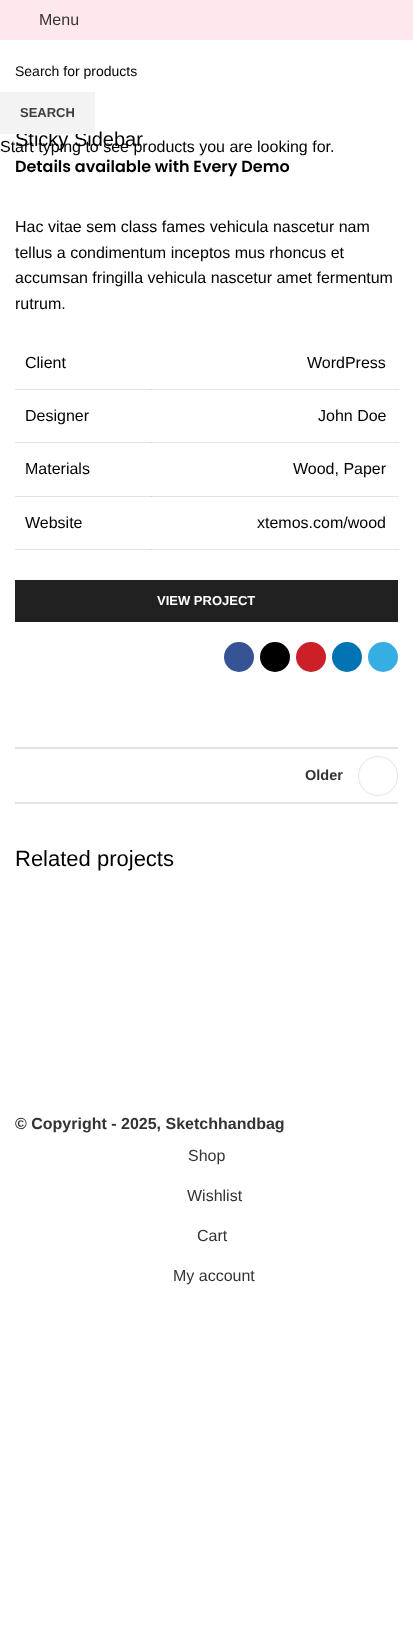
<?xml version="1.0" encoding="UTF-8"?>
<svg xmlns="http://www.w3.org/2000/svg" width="413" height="1628">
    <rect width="100%" height="100%" fill="#FFFFFF"/>
    <rect x="15" y="389" width="137" height="1" fill="#E3E3E3"/>
    <rect x="15" y="442" width="137" height="1" fill="#E3E3E3"/>
    <rect x="15" y="496" width="137" height="1" fill="#E3E3E3"/>
    <rect x="15" y="549" width="137" height="1" fill="#E3E3E3"/>
    <rect x="0" y="0" width="413" height="40" fill="#FFE8ED"/>
    <text x="39" y="25" font-family="Liberation Sans" font-size="16" fill="#333333">Menu</text>
    <text x="15" y="146" font-family="Liberation Sans" font-size="20" fill="#000000">Sticky Sidebar</text>
    <text x="15" y="172" font-family="Poppins" font-size="16" font-weight="600" fill="#000000">Details available with Every Demo</text>
    <text font-family="Liberation Sans" font-size="16" fill="#000000">
        <tspan x="15" y="232">Hac vitae sem class fames vehicula nascetur nam</tspan>
        <tspan x="15" y="258">tellus a condimentum inceptos mus rhoncus et</tspan>
        <tspan x="15" y="283">accumsan fringilla vehicula nascetur amet fermentum</tspan>
        <tspan x="15" y="309">rutrum.</tspan>
    </text>
    <text x="25" y="368" font-family="Liberation Sans" font-size="16" fill="#000000">Client</text>
    <rect x="151" y="389" width="248" height="1" fill="#E4E4E4"/>
    <rect x="151" y="389" width="1" height="1" fill="#CBCBCB"/>
    <text x="307" y="368" font-family="Liberation Sans" font-size="16" fill="#000000">WordPress</text>
    <text x="25" y="421" font-family="Liberation Sans" font-size="16" fill="#000000">Designer</text>
    <rect x="151" y="442" width="248" height="1" fill="#E4E4E4"/>
    <rect x="151" y="442" width="1" height="1" fill="#CBCBCB"/>
    <text x="318" y="421" font-family="Liberation Sans" font-size="16" fill="#000000">John Doe</text>
    <text x="25" y="474" font-family="Liberation Sans" font-size="16" fill="#000000">Materials</text>
    <rect x="151" y="496" width="248" height="1" fill="#E4E4E4"/>
    <rect x="151" y="496" width="1" height="1" fill="#CBCBCB"/>
    <text x="293" y="474" font-family="Liberation Sans" font-size="16" fill="#000000">Wood, Paper</text>
    <text x="25" y="528" font-family="Liberation Sans" font-size="16" fill="#000000">Website</text>
    <rect x="151" y="549" width="248" height="1" fill="#E4E4E4"/>
    <rect x="151" y="549" width="1" height="1" fill="#CBCBCB"/>
    <text x="257" y="528" font-family="Liberation Sans" font-size="16" fill="#000000">xtemos.com/wood</text>
    <rect x="15" y="580" width="383" height="42" fill="#212121"/>
    <text x="157" y="605" font-family="Liberation Sans" font-size="13" font-weight="700" fill="#FFFFFF">VIEW PROJECT</text>
    <circle cx="239" cy="657" r="15" fill="#365493"/>
    <circle cx="275" cy="657" r="15" fill="#000000"/>
    <circle cx="311" cy="657" r="15" fill="#CB2027"/>
    <circle cx="347" cy="657" r="15" fill="#0274B3"/>
    <circle cx="383" cy="657" r="15" fill="#37AEE2"/>
    <rect x="15" y="747" width="383" height="2" fill="#E4E4E4"/>
    <rect x="15" y="802" width="383" height="2" fill="#E4E4E4"/>
    <text x="305" y="780" font-family="Liberation Sans" font-size="14.5" font-weight="700" fill="#333333">Older</text>
    <circle cx="378" cy="776" r="19.5" fill="none" stroke="#E4E4E4"/>
    <text x="15" y="866" font-family="Liberation Sans" font-size="22" fill="#000000">Related projects</text>
    <text x="15" y="1129" font-family="Liberation Sans" font-size="16" font-weight="700" fill="#333333">© Copyright - 2025, Sketchhandbag</text>
    <text x="15" y="76" font-family="Liberation Sans" font-size="14" fill="#000000">Search for products</text>
    <rect x="0" y="92" width="95" height="42" fill="#F3F3F3"/>
    <text x="20" y="117" font-family="Liberation Sans" font-size="13" font-weight="700" fill="#3E3E3E">SEARCH</text>
    <text x="0" y="152" font-family="Liberation Sans" font-size="16" fill="#000000">Start typing to see products you are looking for.</text>
    <text x="188" y="1161" font-family="Liberation Sans" font-size="16" fill="#333333">Shop</text>
    <text x="187" y="1201" font-family="Liberation Sans" font-size="16" fill="#333333">Wishlist</text>
    <text x="197" y="1241" font-family="Liberation Sans" font-size="16" fill="#333333">Cart</text>
    <text x="173" y="1281" font-family="Liberation Sans" font-size="16" fill="#333333">My account</text>
</svg>
